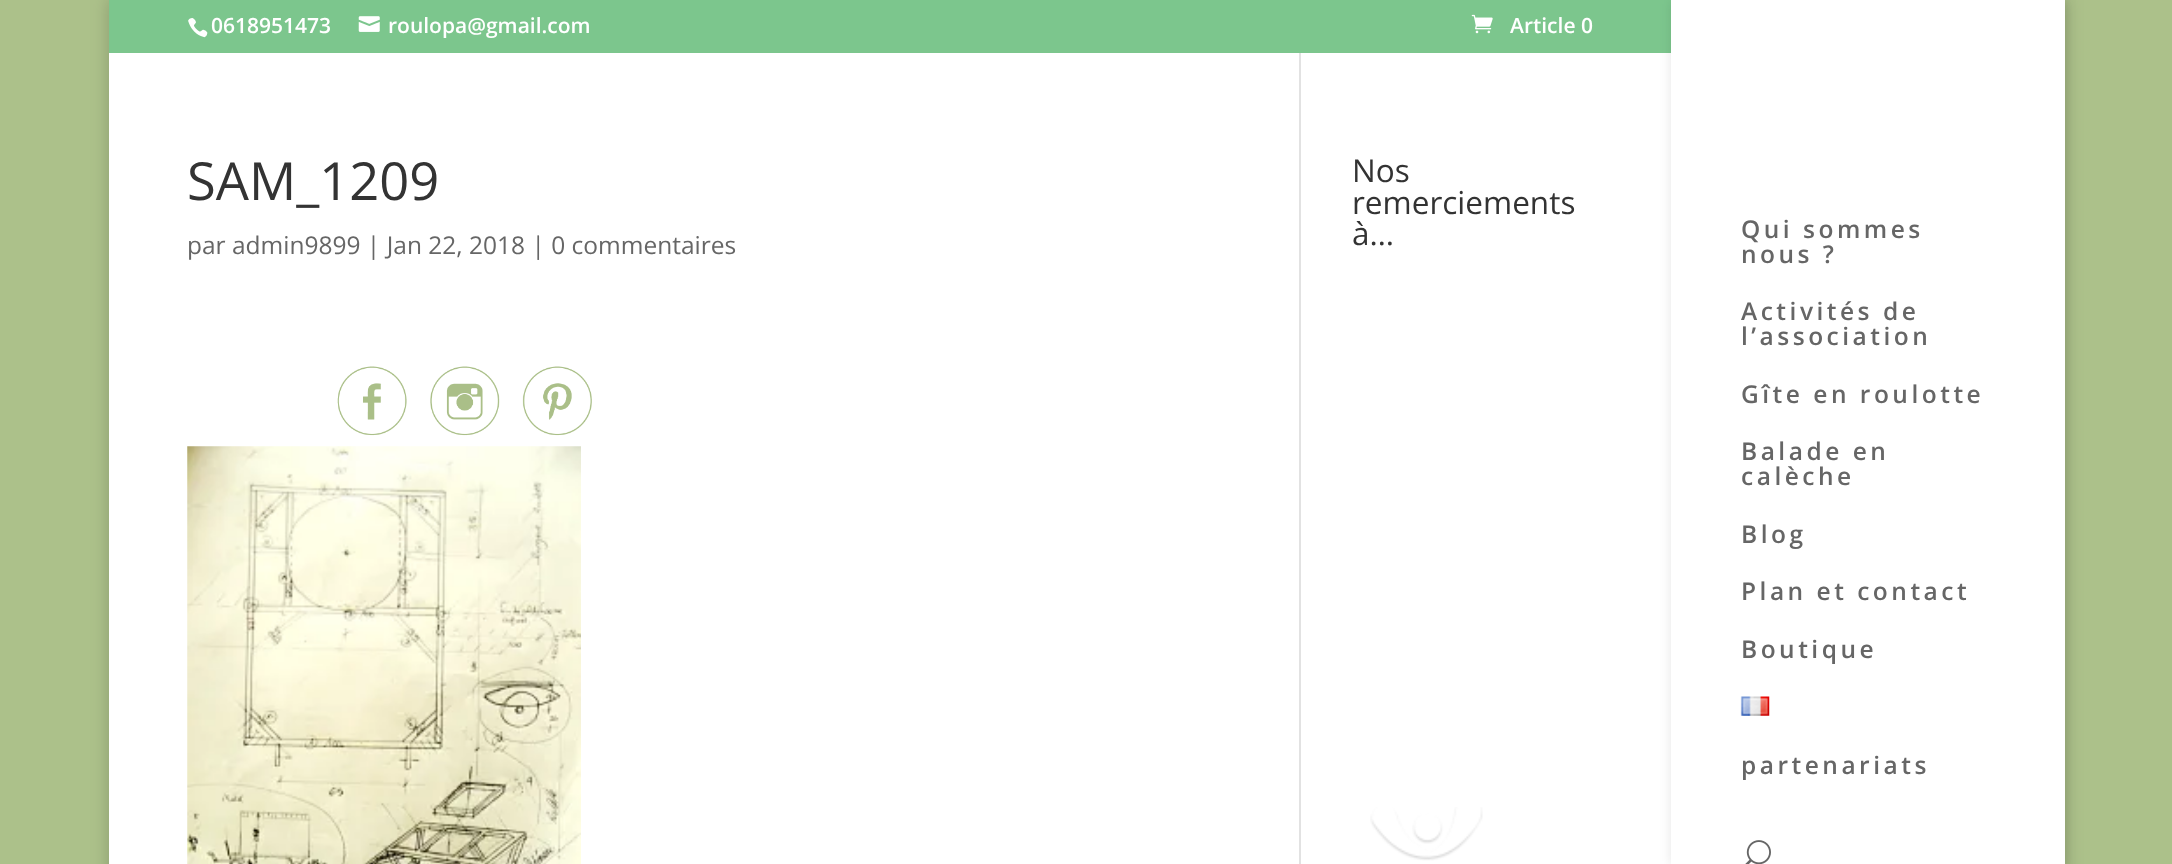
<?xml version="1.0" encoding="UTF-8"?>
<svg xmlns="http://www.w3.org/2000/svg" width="2172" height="864">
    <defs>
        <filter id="blur1" x="-50%" y="-200%" width="200%" height="500%"><feGaussianBlur stdDeviation="9"/></filter>
        <filter id="blur2" x="-50%" y="-200%" width="200%" height="500%"><feGaussianBlur stdDeviation="6"/></filter>
    </defs>
    <rect width="100%" height="100%" fill="#ACC18A"/>
    <rect x="109" y="-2" width="1956" height="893" fill="#000000" fill-opacity="0.2" filter="url(#blur1)"/>
    <rect x="109" y="0" width="1562" height="53" fill="#7CC68D"/>
    <image x="188" y="18" width="20" height="20" href="img_01.png"/>
    <text x="211" y="33" font-family="Open Sans" font-size="21" font-weight="600" fill="#FFFFFF">0618951473</text>
    <image x="358" y="16" width="22" height="16" href="img_02.png"/>
    <text x="388" y="33" font-family="Open Sans" font-size="21" font-weight="600" fill="#FFFFFF">roulopa@gmail.com</text>
    <image x="1471" y="14" width="22" height="20" href="img_03.png"/>
    <text x="1510" y="33" font-family="Open Sans" font-size="21" font-weight="600" fill="#FFFFFF">Article 0</text>
    <rect x="109" y="53" width="1562" height="811" fill="#FFFFFF"/>
    <rect x="1299" y="53" width="2" height="811" fill="#E2E2E2"/>
    <text x="187" y="200" font-family="Open Sans" font-size="52.5" fill="#333333">SAM_1209</text>
    <text x="187" y="254" font-family="Open Sans" font-size="24.5" fill="#666666">par admin9899 | Jan 22, 2018 | 0 commentaires</text>
    <image x="337" y="366" width="70" height="70" href="img_04.png"/>
    <image x="430" y="366" width="70" height="70" href="img_05.png"/>
    <image x="522" y="366" width="70" height="70" href="img_06.png"/>
    <image x="187" y="446" width="394" height="418" href="img_07.png"/>
    <text font-family="Open Sans" font-size="31.5" fill="#333333">
        <tspan x="1352" y="182">Nos</tspan>
        <tspan x="1352" y="214">remerciements</tspan>
        <tspan x="1352" y="245">à…</tspan>
    </text>
    <image x="1370" y="807" width="113" height="54" href="img_08.png"/>
    <rect x="1671" y="0" width="394" height="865" fill="#000000" fill-opacity="0.1" filter="url(#blur2)"/>
    <rect x="1671" y="0" width="394" height="864" fill="#FFFFFF"/>
    <text font-family="Open Sans" font-size="24.5" font-weight="600" letter-spacing="3.5" fill="#666666">
        <tspan x="1741" y="238">Qui sommes</tspan>
        <tspan x="1741" y="263">nous ?</tspan>
    </text>
    <text font-family="Open Sans" font-size="24.5" font-weight="600" letter-spacing="3.5" fill="#666666">
        <tspan x="1741" y="320">Activités de</tspan>
        <tspan x="1741" y="345">l’association</tspan>
    </text>
    <text x="1741" y="403" font-family="Open Sans" font-size="24.5" font-weight="600" letter-spacing="3.5" fill="#666666">Gîte en roulotte</text>
    <text font-family="Open Sans" font-size="24.5" font-weight="600" letter-spacing="3.5" fill="#666666">
        <tspan x="1741" y="460">Balade en</tspan>
        <tspan x="1741" y="485">calèche</tspan>
    </text>
    <text x="1741" y="543" font-family="Open Sans" font-size="24.5" font-weight="600" letter-spacing="3.5" fill="#666666">Blog</text>
    <text x="1741" y="600" font-family="Open Sans" font-size="24.5" font-weight="600" letter-spacing="3.5" fill="#666666">Plan et contact</text>
    <text x="1741" y="658" font-family="Open Sans" font-size="24.5" font-weight="600" letter-spacing="3.5" fill="#666666">Boutique</text>
    <image x="1740" y="696" width="30" height="20" href="img_09.png"/>
    <text x="1741" y="774" font-family="Open Sans" font-size="24.5" font-weight="600" letter-spacing="3.5" fill="#666666">partenariats</text>
    <image x="1745" y="840" width="26" height="24" href="img_10.png"/>
</svg>
